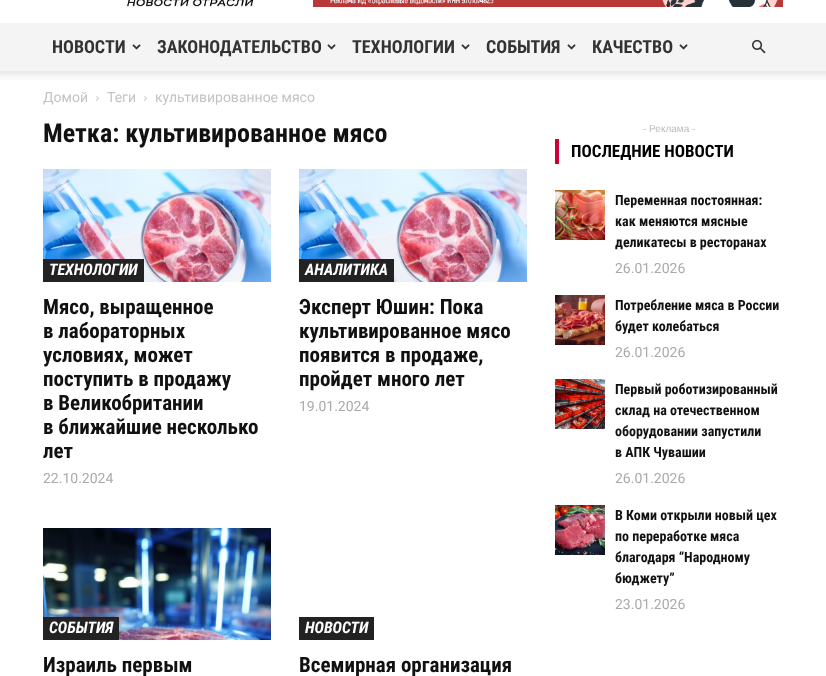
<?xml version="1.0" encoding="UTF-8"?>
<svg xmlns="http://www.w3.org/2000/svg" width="826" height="676">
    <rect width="100%" height="100%" fill="#FFFFFF"/>
    <image x="127" y="0" width="127" height="7" href="img_01.png"/>
    <image x="313" y="0" width="470" height="7" href="img_02.png"/>
    <rect x="0" y="23" width="826" height="48" fill="#F4F4F4"/>
    <text x="52" y="53" font-family="Roboto Condensed" font-size="18" font-weight="700" fill="#333333">НОВОСТИ</text>
    <image x="132" y="44" width="9" height="6" href="img_03.png"/>
    <text x="157" y="53" font-family="Roboto Condensed" font-size="18" font-weight="700" fill="#333333">ЗАКОНОДАТЕЛЬСТВО</text>
    <image x="327" y="44" width="9" height="6" href="img_03.png"/>
    <text x="352" y="53" font-family="Roboto Condensed" font-size="18" font-weight="700" fill="#333333">ТЕХНОЛОГИИ</text>
    <image x="461" y="44" width="9" height="6" href="img_03.png"/>
    <text x="486" y="53" font-family="Roboto Condensed" font-size="18" font-weight="700" fill="#333333">СОБЫТИЯ</text>
    <image x="567" y="44" width="9" height="6" href="img_03.png"/>
    <text x="592" y="53" font-family="Roboto Condensed" font-size="18" font-weight="700" fill="#333333">КАЧЕСТВО</text>
    <image x="679" y="44" width="9" height="6" href="img_03.png"/>
    <image x="752" y="39" width="14" height="15" href="img_04.png"/>
    <image x="0" y="71" width="826" height="9" href="img_05.png"/>
    <text x="43" y="102" font-family="Roboto" font-size="14" fill="#C3C3C3">Домой</text>
    <image x="96" y="96" width="3" height="5" href="img_06.png"/>
    <text x="107" y="102" font-family="Roboto" font-size="14" fill="#C3C3C3">Теги</text>
    <image x="144" y="96" width="3" height="5" href="img_06.png"/>
    <text x="155" y="102" font-family="Roboto" font-size="14" fill="#C3C3C3">культивированное мясо</text>
    <text x="43" y="142" font-family="Roboto Condensed" font-size="26" font-weight="700" fill="#111111">Метка: культивированное мясо</text>
    <image x="43" y="169" width="228" height="113" href="img_07.png"/>
    <rect x="43" y="259" width="101" height="23" fill="#222222"/>
    <text x="49" y="275" font-family="Roboto Condensed" font-size="16" font-weight="700" font-style="italic" fill="#FFFFFF">ТЕХНОЛОГИИ</text>
    <text font-family="Roboto Condensed" font-size="21" font-weight="700" fill="#111111">
        <tspan x="43" y="314">Мясо, выращенное</tspan>
        <tspan x="43" y="338">в лабораторных</tspan>
        <tspan x="43" y="362">условиях, может</tspan>
        <tspan x="43" y="386">поступить в продажу</tspan>
        <tspan x="43" y="410">в Великобритании</tspan>
        <tspan x="43" y="434">в ближайшие несколько</tspan>
        <tspan x="43" y="458">лет</tspan>
    </text>
    <text x="43" y="483" font-family="Roboto" font-size="14" fill="#AAAAAA">22.10.2024</text>
    <image x="299" y="169" width="228" height="113" href="img_07.png"/>
    <rect x="299" y="259" width="95" height="23" fill="#222222"/>
    <text x="305" y="275" font-family="Roboto Condensed" font-size="16" font-weight="700" font-style="italic" fill="#FFFFFF">АНАЛИТИКА</text>
    <text font-family="Roboto Condensed" font-size="21" font-weight="700" fill="#111111">
        <tspan x="299" y="314">Эксперт Юшин: Пока</tspan>
        <tspan x="299" y="338">культивированное мясо</tspan>
        <tspan x="299" y="362">появится в продаже,</tspan>
        <tspan x="299" y="386">пройдет много лет</tspan>
    </text>
    <text x="299" y="411" font-family="Roboto" font-size="14" fill="#AAAAAA">19.01.2024</text>
    <image x="43" y="528" width="228" height="112" href="img_08.png"/>
    <rect x="43" y="617" width="76" height="23" fill="#222222"/>
    <text x="49" y="633" font-family="Roboto Condensed" font-size="16" font-weight="700" font-style="italic" fill="#FFFFFF">СОБЫТИЯ</text>
    <text x="43" y="672" font-family="Roboto Condensed" font-size="21" font-weight="700" fill="#111111">Израиль первым</text>
    <rect x="299" y="617" width="75" height="23" fill="#222222"/>
    <text x="305" y="633" font-family="Roboto Condensed" font-size="16" font-weight="700" font-style="italic" fill="#FFFFFF">НОВОСТИ</text>
    <text x="299" y="672" font-family="Roboto Condensed" font-size="21" font-weight="700" fill="#111111">Всемирная организация</text>
    <text x="643" y="132" font-family="Liberation Sans" font-size="10" fill="#BBBBBB">- Реклама -</text>
    <rect x="555" y="139" width="4" height="25" fill="#CC0237"/>
    <text x="571" y="157" font-family="Roboto Condensed" font-size="17" font-weight="700" fill="#000000">ПОСЛЕДНИЕ НОВОСТИ</text>
    <image x="555" y="190" width="50" height="50" href="img_09.png"/>
    <text font-family="Roboto Condensed" font-size="14" font-weight="700" fill="#111111">
        <tspan x="615" y="205">Переменная постоянная:</tspan>
        <tspan x="615" y="226">как меняются мясные</tspan>
        <tspan x="615" y="247">деликатесы в ресторанах</tspan>
    </text>
    <text x="615" y="273" font-family="Roboto" font-size="14" fill="#AAAAAA">26.01.2026</text>
    <image x="555" y="295" width="50" height="50" href="img_10.png"/>
    <text font-family="Roboto Condensed" font-size="14" font-weight="700" fill="#111111">
        <tspan x="615" y="310">Потребление мяса в России</tspan>
        <tspan x="615" y="331">будет колебаться</tspan>
    </text>
    <text x="615" y="357" font-family="Roboto" font-size="14" fill="#AAAAAA">26.01.2026</text>
    <image x="555" y="379" width="50" height="50" href="img_11.png"/>
    <text font-family="Roboto Condensed" font-size="14" font-weight="700" fill="#111111">
        <tspan x="615" y="394">Первый роботизированный</tspan>
        <tspan x="615" y="415">склад на отечественном</tspan>
        <tspan x="615" y="436">оборудовании запустили</tspan>
        <tspan x="615" y="457">в АПК Чувашии</tspan>
    </text>
    <text x="615" y="483" font-family="Roboto" font-size="14" fill="#AAAAAA">26.01.2026</text>
    <image x="555" y="505" width="50" height="50" href="img_12.png"/>
    <text font-family="Roboto Condensed" font-size="14" font-weight="700" fill="#111111">
        <tspan x="615" y="520">В Коми открыли новый цех</tspan>
        <tspan x="615" y="541">по переработке мяса</tspan>
        <tspan x="615" y="562">благодаря “Народному</tspan>
        <tspan x="615" y="583">бюджету”</tspan>
    </text>
    <text x="615" y="609" font-family="Roboto" font-size="14" fill="#AAAAAA">23.01.2026</text>
</svg>
